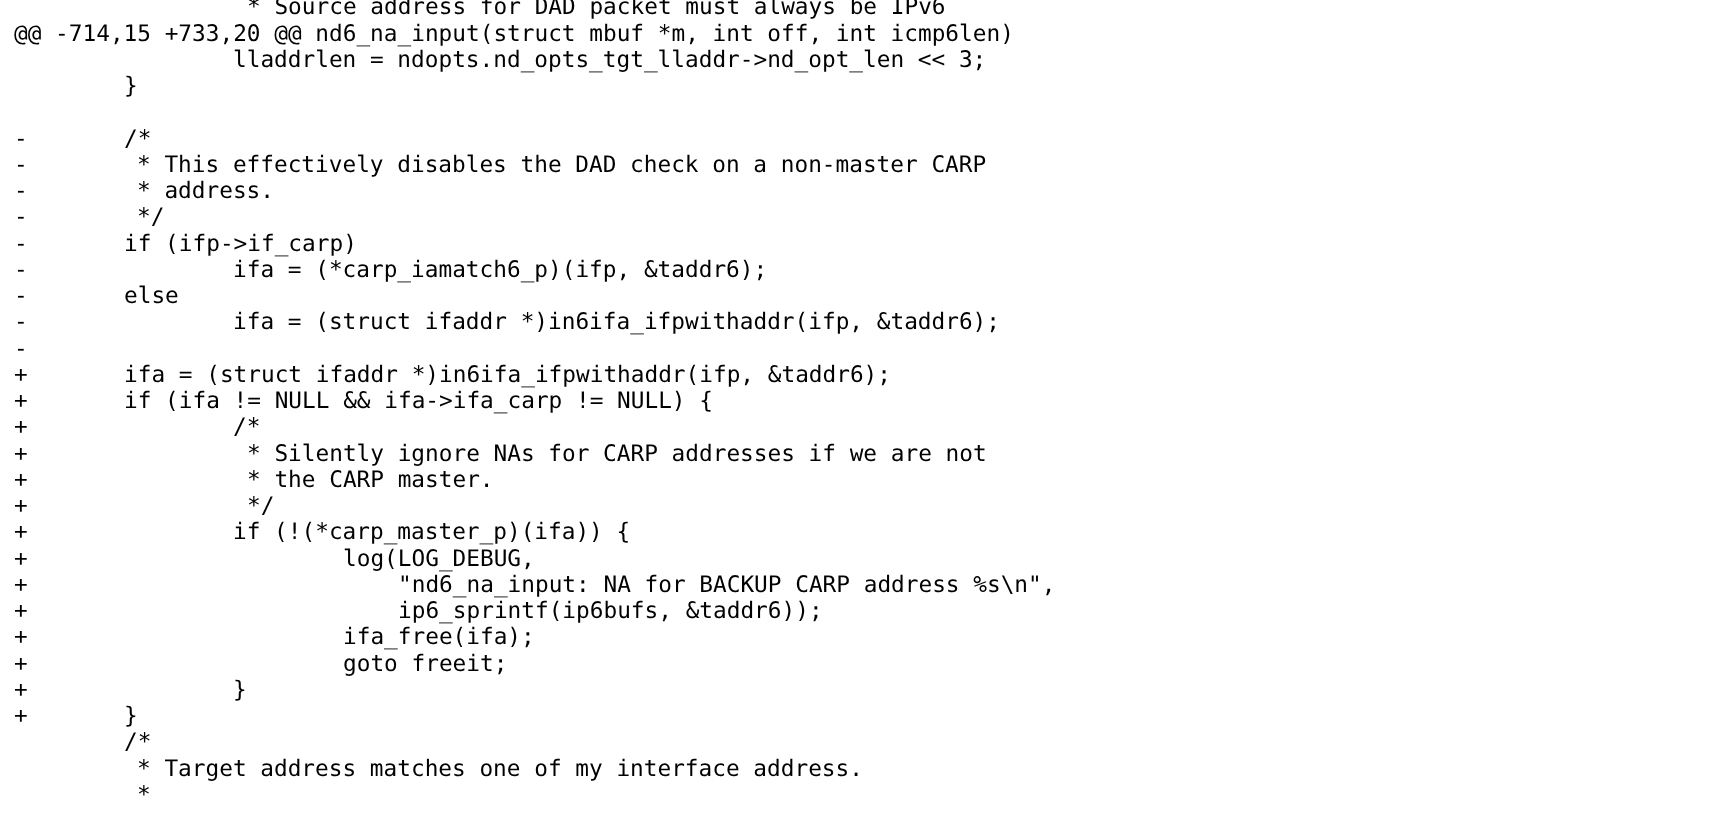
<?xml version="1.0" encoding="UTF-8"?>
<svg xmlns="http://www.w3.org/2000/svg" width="1710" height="824">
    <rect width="100%" height="100%" fill="#FFFFFF"/>
    <text x="247" y="14" font-family="DejaVu Sans Mono" font-size="22.75" fill="#000000">* Source address for DAD packet must always be IPv6</text>
    <text x="14" y="41" font-family="DejaVu Sans Mono" font-size="22.75" fill="#000000">@@ -714,15 +733,20 @@ nd6_na_input(struct mbuf *m, int off, int icmp6len)</text>
    <text x="233" y="67" font-family="DejaVu Sans Mono" font-size="22.75" fill="#000000">lladdrlen = ndopts.nd_opts_tgt_lladdr-&gt;nd_opt_len &lt;&lt; 3;</text>
    <text x="124" y="93" font-family="DejaVu Sans Mono" font-size="22.75" fill="#000000">}</text>
    <text x="14" y="146" font-family="DejaVu Sans Mono" font-size="22.75" fill="#000000">-</text>
    <text x="124" y="146" font-family="DejaVu Sans Mono" font-size="22.75" fill="#000000">/*</text>
    <text x="14" y="172" font-family="DejaVu Sans Mono" font-size="22.75" fill="#000000">-</text>
    <text x="137" y="172" font-family="DejaVu Sans Mono" font-size="22.75" fill="#000000">* This effectively disables the DAD check on a non-master CARP</text>
    <text x="14" y="198" font-family="DejaVu Sans Mono" font-size="22.75" fill="#000000">-</text>
    <text x="137" y="198" font-family="DejaVu Sans Mono" font-size="22.75" fill="#000000">* address.</text>
    <text x="14" y="224" font-family="DejaVu Sans Mono" font-size="22.75" fill="#000000">-</text>
    <text x="137" y="224" font-family="DejaVu Sans Mono" font-size="22.75" fill="#000000">*/</text>
    <text x="14" y="251" font-family="DejaVu Sans Mono" font-size="22.75" fill="#000000">-</text>
    <text x="124" y="251" font-family="DejaVu Sans Mono" font-size="22.75" fill="#000000">if (ifp-&gt;if_carp)</text>
    <text x="14" y="277" font-family="DejaVu Sans Mono" font-size="22.75" fill="#000000">-</text>
    <text x="233" y="277" font-family="DejaVu Sans Mono" font-size="22.75" fill="#000000">ifa = (*carp_iamatch6_p)(ifp, &amp;taddr6);</text>
    <text x="14" y="303" font-family="DejaVu Sans Mono" font-size="22.75" fill="#000000">-</text>
    <text x="124" y="303" font-family="DejaVu Sans Mono" font-size="22.75" fill="#000000">else</text>
    <text x="14" y="329" font-family="DejaVu Sans Mono" font-size="22.75" fill="#000000">-</text>
    <text x="233" y="329" font-family="DejaVu Sans Mono" font-size="22.75" fill="#000000">ifa = (struct ifaddr *)in6ifa_ifpwithaddr(ifp, &amp;taddr6);</text>
    <text font-family="DejaVu Sans Mono" font-size="22.75" fill="#000000">
        <tspan x="14" y="356">-</tspan>
        <tspan x="14" y="382">+</tspan>
    </text>
    <text x="124" y="382" font-family="DejaVu Sans Mono" font-size="22.75" fill="#000000">ifa = (struct ifaddr *)in6ifa_ifpwithaddr(ifp, &amp;taddr6);</text>
    <text x="14" y="408" font-family="DejaVu Sans Mono" font-size="22.75" fill="#000000">+</text>
    <text x="124" y="408" font-family="DejaVu Sans Mono" font-size="22.75" fill="#000000">if (ifa != NULL &amp;&amp; ifa-&gt;ifa_carp != NULL) {</text>
    <text x="14" y="434" font-family="DejaVu Sans Mono" font-size="22.75" fill="#000000">+</text>
    <text x="233" y="434" font-family="DejaVu Sans Mono" font-size="22.75" fill="#000000">/*</text>
    <text x="14" y="461" font-family="DejaVu Sans Mono" font-size="22.75" fill="#000000">+</text>
    <text x="247" y="461" font-family="DejaVu Sans Mono" font-size="22.75" fill="#000000">* Silently ignore NAs for CARP addresses if we are not</text>
    <text x="14" y="487" font-family="DejaVu Sans Mono" font-size="22.75" fill="#000000">+</text>
    <text x="247" y="487" font-family="DejaVu Sans Mono" font-size="22.75" fill="#000000">* the CARP master.</text>
    <text x="14" y="513" font-family="DejaVu Sans Mono" font-size="22.75" fill="#000000">+</text>
    <text x="247" y="513" font-family="DejaVu Sans Mono" font-size="22.75" fill="#000000">*/</text>
    <text x="14" y="539" font-family="DejaVu Sans Mono" font-size="22.75" fill="#000000">+</text>
    <text x="233" y="539" font-family="DejaVu Sans Mono" font-size="22.75" fill="#000000">if (!(*carp_master_p)(ifa)) {</text>
    <text x="14" y="566" font-family="DejaVu Sans Mono" font-size="22.75" fill="#000000">+</text>
    <text x="343" y="566" font-family="DejaVu Sans Mono" font-size="22.75" fill="#000000">log(LOG_DEBUG,</text>
    <text x="14" y="592" font-family="DejaVu Sans Mono" font-size="22.75" fill="#000000">+</text>
    <text x="398" y="592" font-family="DejaVu Sans Mono" font-size="22.75" fill="#000000">"nd6_na_input: NA for BACKUP CARP address %s\n",</text>
    <text x="14" y="618" font-family="DejaVu Sans Mono" font-size="22.75" fill="#000000">+</text>
    <text x="398" y="618" font-family="DejaVu Sans Mono" font-size="22.75" fill="#000000">ip6_sprintf(ip6bufs, &amp;taddr6));</text>
    <text x="14" y="644" font-family="DejaVu Sans Mono" font-size="22.75" fill="#000000">+</text>
    <text x="343" y="644" font-family="DejaVu Sans Mono" font-size="22.75" fill="#000000">ifa_free(ifa);</text>
    <text x="14" y="671" font-family="DejaVu Sans Mono" font-size="22.75" fill="#000000">+</text>
    <text x="343" y="671" font-family="DejaVu Sans Mono" font-size="22.75" fill="#000000">goto freeit;</text>
    <text x="14" y="697" font-family="DejaVu Sans Mono" font-size="22.75" fill="#000000">+</text>
    <text x="233" y="697" font-family="DejaVu Sans Mono" font-size="22.75" fill="#000000">}</text>
    <text x="14" y="723" font-family="DejaVu Sans Mono" font-size="22.75" fill="#000000">+</text>
    <text font-family="DejaVu Sans Mono" font-size="22.75" fill="#000000">
        <tspan x="124" y="723">}</tspan>
        <tspan x="124" y="749">/*</tspan>
    </text>
    <text font-family="DejaVu Sans Mono" font-size="22.75" fill="#000000">
        <tspan x="137" y="776">* Target address matches one of my interface address.</tspan>
        <tspan x="137" y="802">*</tspan>
    </text>
</svg>
